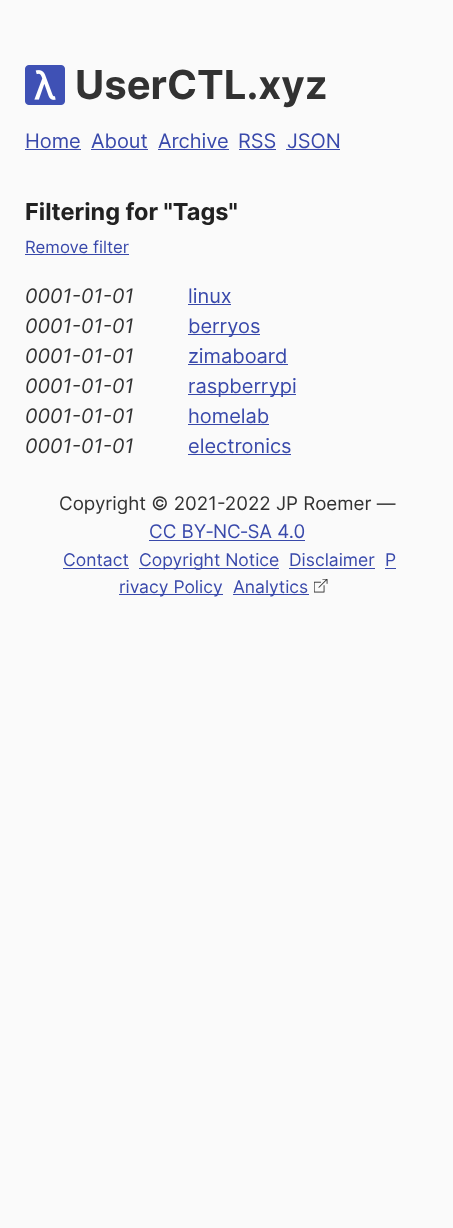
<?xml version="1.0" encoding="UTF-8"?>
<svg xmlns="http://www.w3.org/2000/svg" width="453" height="1228">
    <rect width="100%" height="100%" fill="#FAFAFA"/>
    <image x="25" y="65" width="40" height="40" href="img_01.png"/>
    <text x="75" y="99" font-family="Inter" font-size="40" font-weight="700" fill="#323232">UserCTL.xyz</text>
    <text x="25" y="148" font-family="Inter" font-size="20" fill="#3949AB">Home</text>
    <rect x="25" y="149" width="56" height="1" fill="#3949AB"/>
    <text x="91" y="148" font-family="Inter" font-size="20" fill="#3949AB">About</text>
    <rect x="91" y="149" width="57" height="1" fill="#3949AB"/>
    <text x="158" y="148" font-family="Inter" font-size="20" fill="#3949AB">Archive</text>
    <rect x="158" y="149" width="71" height="1" fill="#3949AB"/>
    <text x="238" y="148" font-family="Inter" font-size="20" fill="#3949AB">RSS</text>
    <rect x="239" y="149" width="37" height="1" fill="#3949AB"/>
    <text x="287" y="148" font-family="Inter" font-size="20" fill="#3949AB">JSON</text>
    <rect x="286" y="149" width="54" height="1" fill="#3949AB"/>
    <text x="25" y="220" font-family="Inter" font-size="23.5" font-weight="700" fill="#212121">Filtering for "Tags"</text>
    <text x="25" y="253" font-family="Inter" font-size="16.75" fill="#3949AB">Remove filter</text>
    <rect x="25" y="254" width="104" height="1" fill="#3949AB"/>
    <text x="25" y="303" font-family="Inter" font-size="20" font-style="italic" fill="#323232">0001-01-01</text>
    <text x="188" y="303" font-family="Inter" font-size="20" fill="#3949AB">linux</text>
    <rect x="188" y="304" width="43" height="1" fill="#3949AB"/>
    <text x="25" y="333" font-family="Inter" font-size="20" font-style="italic" fill="#323232">0001-01-01</text>
    <rect x="188" y="334" width="72" height="1" fill="#3949AB"/>
    <text x="188" y="333" font-family="Inter" font-size="20" fill="#3949AB">berryos</text>
    <text x="25" y="363" font-family="Inter" font-size="20" font-style="italic" fill="#323232">0001-01-01</text>
    <text x="188" y="363" font-family="Inter" font-size="20" fill="#3949AB">zimaboard</text>
    <rect x="188" y="364" width="100" height="1" fill="#3949AB"/>
    <text x="25" y="393" font-family="Inter" font-size="20" font-style="italic" fill="#323232">0001-01-01</text>
    <rect x="188" y="394" width="108" height="1" fill="#3949AB"/>
    <text x="188" y="393" font-family="Inter" font-size="20" fill="#3949AB">raspberrypi</text>
    <text x="25" y="423" font-family="Inter" font-size="20" font-style="italic" fill="#323232">0001-01-01</text>
    <text x="188" y="423" font-family="Inter" font-size="20" fill="#3949AB">homelab</text>
    <rect x="188" y="424" width="81" height="1" fill="#3949AB"/>
    <text x="25" y="453" font-family="Inter" font-size="20" font-style="italic" fill="#323232">0001-01-01</text>
    <text x="188" y="453" font-family="Inter" font-size="20" fill="#3949AB">electronics</text>
    <rect x="188" y="454" width="103" height="1" fill="#3949AB"/>
    <text x="59" y="510" font-family="Inter" font-size="18.75" fill="#323232">Copyright © 2021-2022 JP Roemer —</text>
    <text x="149" y="538" font-family="Inter" font-size="18.75" fill="#3949AB">CC BY‑NC‑SA 4.0</text>
    <rect x="149" y="540" width="156" height="1" fill="#3949AB"/>
    <text x="63" y="566" font-family="Inter" font-size="17.5" fill="#3949AB">Contact</text>
    <rect x="63" y="568" width="66" height="1" fill="#3949AB"/>
    <rect x="139" y="568" width="140" height="1" fill="#3949AB"/>
    <text x="139" y="566" font-family="Inter" font-size="17.5" fill="#3949AB">Copyright Notice</text>
    <text x="289" y="566" font-family="Inter" font-size="17.5" fill="#3949AB">Disclaimer</text>
    <rect x="289" y="568" width="86" height="1" fill="#3949AB"/>
    <text x="385" y="566" font-family="Inter" font-size="17.5" fill="#3949AB">P</text>
    <rect x="385" y="568" width="11" height="1" fill="#3949AB"/>
    <rect x="119" y="594" width="104" height="1" fill="#3949AB"/>
    <text x="119" y="593" font-family="Inter" font-size="17.5" fill="#3949AB">rivacy Policy</text>
    <rect x="233" y="594" width="76" height="1" fill="#3949AB"/>
    <text x="233" y="593" font-family="Inter" font-size="17.5" fill="#3949AB">Analytics</text>
    <image x="314" y="579" width="14" height="14" href="img_02.png"/>
</svg>
